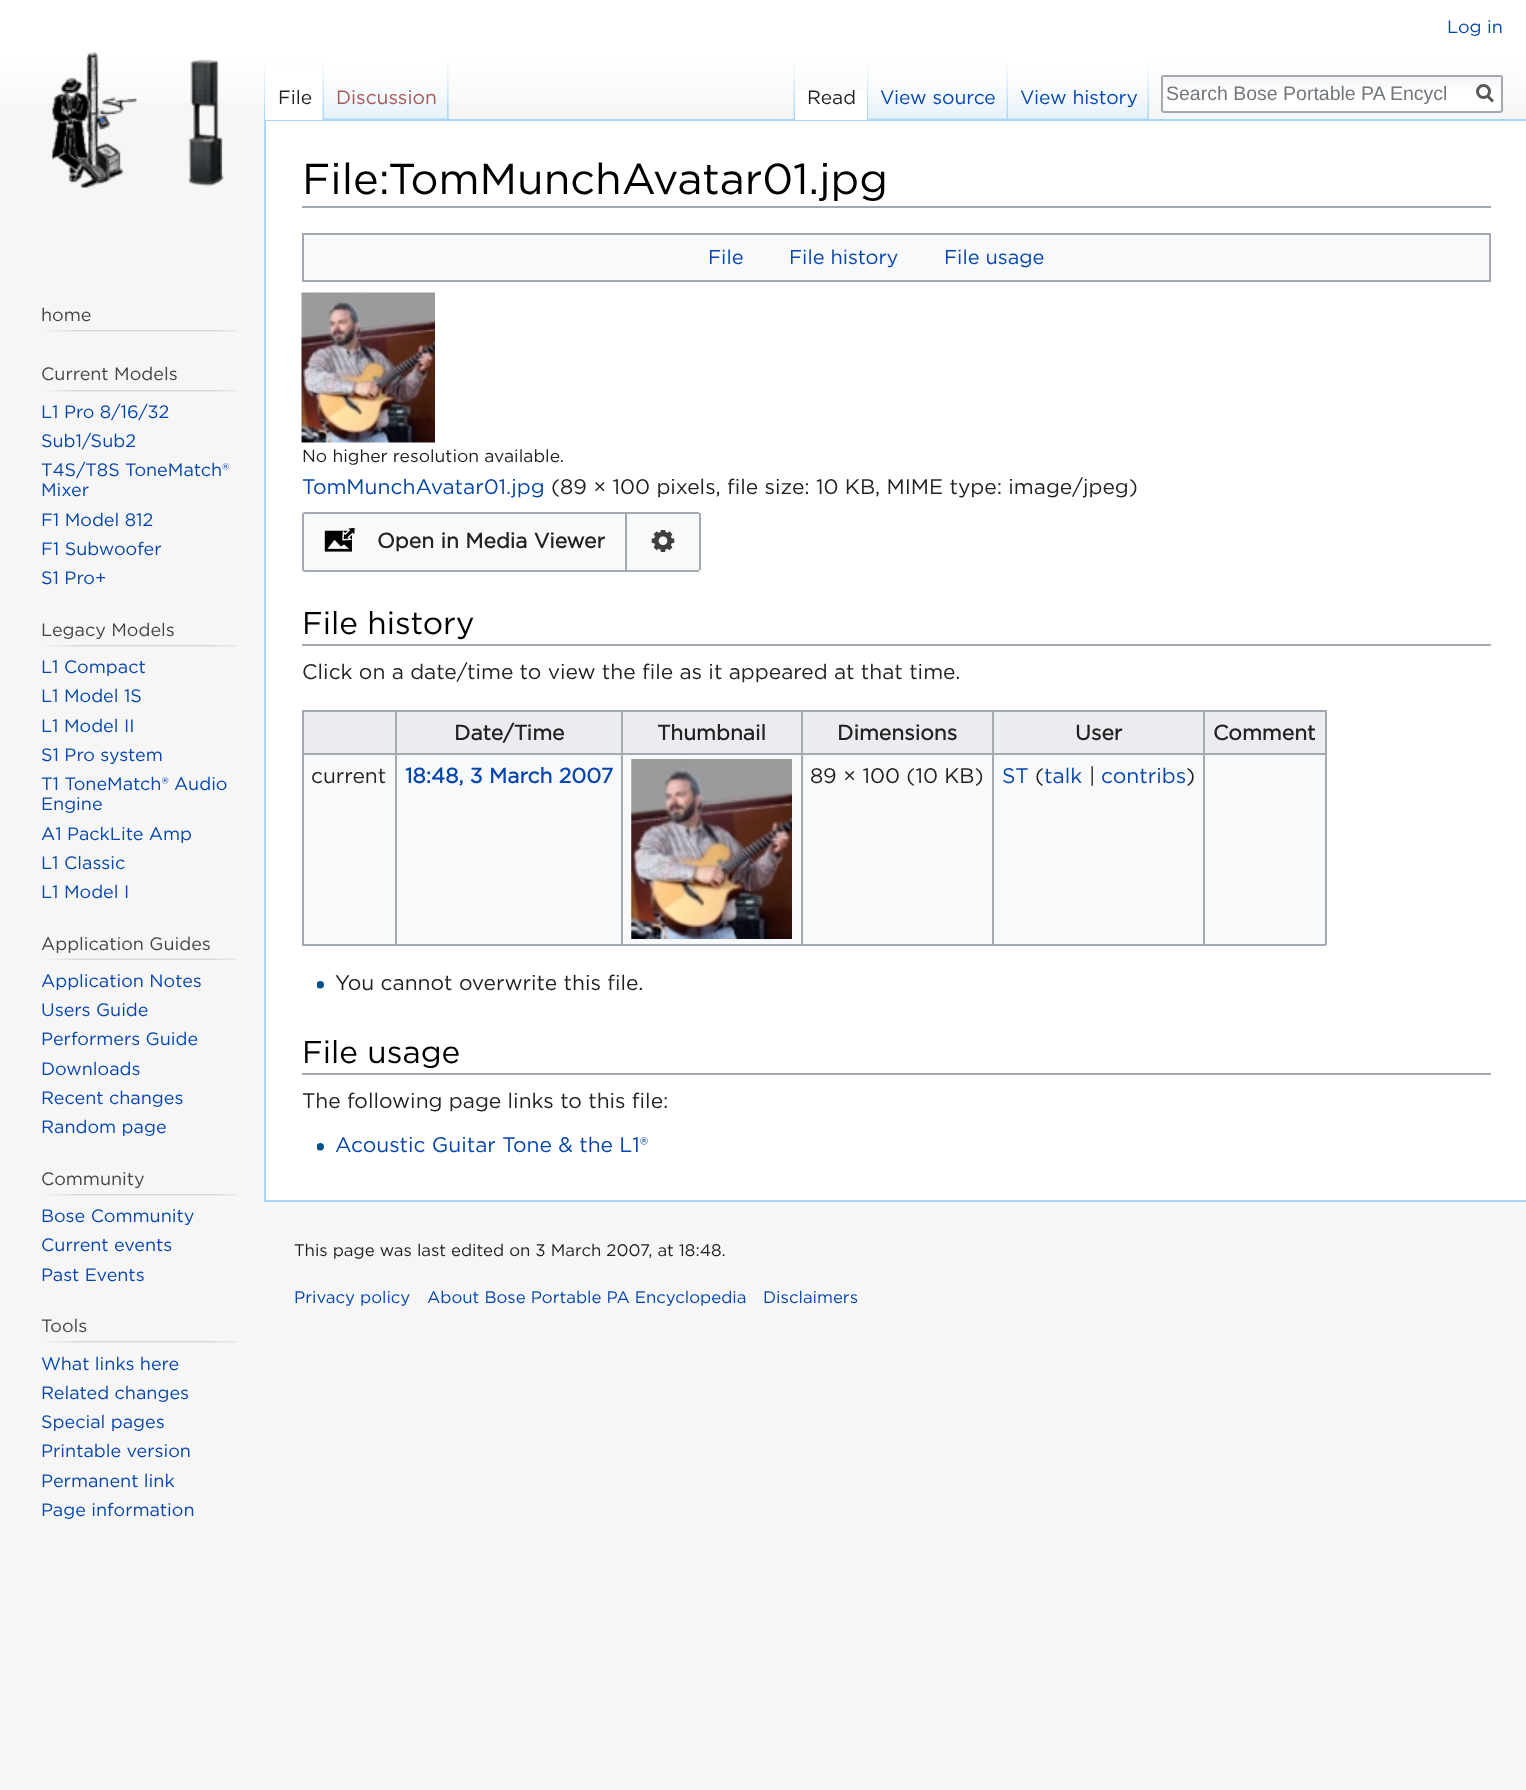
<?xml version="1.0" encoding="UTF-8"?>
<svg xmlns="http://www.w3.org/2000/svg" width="1526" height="1790">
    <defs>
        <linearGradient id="g1" gradientUnits="userSpaceOnUse" x1="764" y1="0" x2="764" y2="120"><stop offset="0.5" stop-color="#FFFFFF"/><stop offset="1" stop-color="#F6F6F6"/></linearGradient>
    </defs>
    <rect width="100%" height="100%" fill="#F6F6F6"/>
    <rect x="0" y="0" width="1526" height="103" fill="url(#g1)"/>
    <text x="1447" y="33" font-family="Gotham" font-size="18" fill="#0645AD">Log in</text>
    <image x="264" y="60" width="2" height="59" href="img_01.png"/>
    <image x="448" y="60" width="1" height="59" href="img_02.png"/>
    <rect x="264" y="119" width="1262" height="2" fill="#A7D7F9"/>
    <rect x="264" y="1200" width="1262" height="2" fill="#A7D7F9"/>
    <rect x="264" y="119" width="2" height="1083" fill="#A7D7F9"/>
    <rect x="265" y="70" width="58" height="50" fill="#FFFFFF"/>
    <image x="322" y="60" width="2" height="60" href="img_03.png"/>
    <text x="278" y="104" font-family="Gotham" font-size="19.25" fill="#222222">File</text>
    <image x="324" y="60" width="125" height="59" href="img_04.png"/>
    <image x="447" y="60" width="2" height="59" href="img_05.png"/>
    <text x="336" y="104" font-family="Gotham" font-size="19.25" fill="#A55858">Discussion</text>
    <image x="793" y="60" width="2" height="59" href="img_06.png"/>
    <rect x="795" y="90" width="74" height="30" fill="#FFFFFF"/>
    <image x="867" y="60" width="2" height="60" href="img_07.png"/>
    <text x="807" y="104" font-family="Gotham" font-size="19.25" fill="#222222">Read</text>
    <image x="868" y="71" width="140" height="49" href="img_08.png"/>
    <image x="1006" y="60" width="2" height="59" href="img_09.png"/>
    <text x="880" y="104" font-family="Gotham" font-size="19.25" fill="#0645AD">View source</text>
    <image x="1008" y="60" width="140" height="59" href="img_10.png"/>
    <image x="1147" y="60" width="2" height="59" href="img_11.png"/>
    <text x="1020" y="104" font-family="Gotham" font-size="19.25" fill="#0645AD">View history</text>
    <rect x="1161" y="75" width="342" height="38" rx="3" fill="#FFFFFF"/>
    <image x="1161" y="76" width="342" height="13" href="img_12.png"/>
    <rect x="1162" y="76" width="340" height="36" rx="2" fill="none" stroke="#A2A9B1" stroke-width="2"/>
    <text x="1166" y="100" font-family="Liberation Sans" font-size="19.5" fill="#72777D">Search Bose Portable PA Encycl</text>
    <path d="M 1493 101.5 L 1487 95.5" fill="none" stroke="#54595D" stroke-width="3"/>
    <circle cx="1483.5" cy="91.5" r="6" fill="none" stroke="#54595D" stroke-width="3"/>
    <image x="51" y="52" width="174" height="136" href="img_13.png"/>
    <text x="41" y="321" font-family="Gotham" font-size="18" fill="#444444">home</text>
    <image x="44" y="330" width="193" height="2" href="img_14.png"/>
    <text x="41" y="380" font-family="Gotham" font-size="18" fill="#444444">Current Models</text>
    <image x="44" y="390" width="193" height="2" href="img_14.png"/>
    <text font-family="Gotham" font-size="18" fill="#0645AD">
        <tspan x="41" y="418">L1 Pro 8/16/32</tspan>
        <tspan x="41" y="447">Sub1/Sub2</tspan>
        <tspan x="41" y="476">T4S/T8S ToneMatch®</tspan>
        <tspan x="41" y="496">Mixer</tspan>
        <tspan x="41" y="526">F1 Model 812</tspan>
        <tspan x="41" y="555">F1 Subwoofer</tspan>
        <tspan x="41" y="584">S1 Pro+</tspan>
    </text>
    <text x="41" y="636" font-family="Gotham" font-size="18" fill="#444444">Legacy Models</text>
    <image x="44" y="645" width="193" height="2" href="img_14.png"/>
    <text font-family="Gotham" font-size="18" fill="#0645AD">
        <tspan x="41" y="673">L1 Compact</tspan>
        <tspan x="41" y="702">L1 Model 1S</tspan>
        <tspan x="41" y="732">L1 Model II</tspan>
        <tspan x="41" y="761">S1 Pro system</tspan>
        <tspan x="41" y="790">T1 ToneMatch® Audio</tspan>
        <tspan x="41" y="810">Engine</tspan>
        <tspan x="41" y="840">A1 PackLite Amp</tspan>
        <tspan x="41" y="869">L1 Classic</tspan>
        <tspan x="41" y="898">L1 Model I</tspan>
    </text>
    <text x="41" y="950" font-family="Gotham" font-size="18" fill="#444444">Application Guides</text>
    <image x="44" y="958" width="193" height="2" href="img_15.png"/>
    <text font-family="Gotham" font-size="18" fill="#0645AD">
        <tspan x="41" y="987">Application Notes</tspan>
        <tspan x="41" y="1016">Users Guide</tspan>
        <tspan x="41" y="1045">Performers Guide</tspan>
        <tspan x="41" y="1075">Downloads</tspan>
        <tspan x="41" y="1104">Recent changes</tspan>
        <tspan x="41" y="1133">Random page</tspan>
    </text>
    <text x="41" y="1185" font-family="Gotham" font-size="18" fill="#444444">Community</text>
    <image x="44" y="1194" width="193" height="2" href="img_14.png"/>
    <text font-family="Gotham" font-size="18" fill="#0645AD">
        <tspan x="41" y="1222">Bose Community</tspan>
        <tspan x="41" y="1251">Current events</tspan>
        <tspan x="41" y="1281">Past Events</tspan>
    </text>
    <text x="41" y="1332" font-family="Gotham" font-size="18" fill="#444444">Tools</text>
    <image x="44" y="1341" width="193" height="2" href="img_14.png"/>
    <text font-family="Gotham" font-size="18" fill="#0645AD">
        <tspan x="41" y="1370">What links here</tspan>
        <tspan x="41" y="1399">Related changes</tspan>
        <tspan x="41" y="1428">Special pages</tspan>
        <tspan x="41" y="1457">Printable version</tspan>
        <tspan x="41" y="1487">Permanent link</tspan>
        <tspan x="41" y="1516">Page information</tspan>
    </text>
    <rect x="266" y="121" width="1260" height="1079" fill="#FFFFFF"/>
    <rect x="302" y="206" width="1189" height="2" fill="#A2A9B1"/>
    <text x="302" y="194" font-family="Gotham" font-size="43.25" fill="#000000">File:TomMunchAvatar01.jpg</text>
    <rect x="303" y="234" width="1187" height="47" fill="#F8F9FA" stroke="#A2A9B1" stroke-width="2"/>
    <text x="708" y="264" font-family="Gotham" font-size="20" fill="#0645AD">File</text>
    <text x="789" y="264" font-family="Gotham" font-size="20" fill="#0645AD">File history</text>
    <text x="944" y="264" font-family="Gotham" font-size="20" fill="#0645AD">File usage</text>
    <image x="301" y="292" width="134" height="151" href="img_16.png"/>
    <text x="302" y="462" font-family="Gotham" font-size="17.5" fill="#222222">No higher resolution available.</text>
    <text x="302" y="494" font-family="Gotham" font-size="21" fill="#0645AD">TomMunchAvatar01.jpg</text>
    <text x="551" y="494" font-family="Gotham" font-size="21" fill="#222222">(89 × 100 pixels, file size: 10 KB, MIME type: image/jpeg)</text>
    <path d="M 305 513 H 626 V 571 H 305 C 304 571 303 570 303 569 V 515 C 303 514 304 513 305 513 Z" fill="#F8F9FA" stroke="#A2A9B1" stroke-width="2"/>
    <image x="324" y="528" width="31" height="24" href="img_17.png"/>
    <text x="377" y="548" font-family="Gotham" font-size="21" font-weight="700" fill="#222222">Open in Media Viewer</text>
    <path d="M 627 512 H 698 C 699.5 512 701 513.5 701 515 V 569 C 701 570.5 699.5 572 698 572 H 627 Z" fill="#F8F9FA"/>
    <rect x="627" y="512" width="72" height="2" fill="#A2A9B1"/>
    <rect x="699" y="513" width="2" height="57" fill="#A2A9B1"/>
    <rect x="627" y="570" width="72" height="2" fill="#A2A9B1"/>
    <image x="651" y="530" width="24" height="22" href="img_18.png"/>
    <rect x="302" y="644" width="1189" height="2" fill="#A2A9B1"/>
    <text x="302" y="634" font-family="Gotham" font-size="31.5" fill="#000000">File history</text>
    <text x="302" y="679" font-family="Gotham" font-size="21" fill="#222222">Click on a date/time to view the file as it appeared at that time.</text>
    <rect x="304" y="755" width="1021" height="189" fill="#F8F9FA"/>
    <rect x="302" y="710" width="1024" height="2" fill="#A2A9B1"/>
    <rect x="1325" y="710" width="2" height="235" fill="#A2A9B1"/>
    <rect x="302" y="944" width="1024" height="2" fill="#A2A9B1"/>
    <rect x="302" y="710" width="2" height="235" fill="#A2A9B1"/>
    <rect x="304" y="712" width="91" height="41" fill="#EAECF0"/>
    <rect x="397" y="712" width="224" height="41" fill="#EAECF0"/>
    <rect x="1203" y="753" width="123" height="2" fill="#A2A9B1"/>
    <rect x="1203" y="753" width="2" height="192" fill="#A2A9B1"/>
    <rect x="992" y="753" width="213" height="2" fill="#A2A9B1"/>
    <rect x="992" y="753" width="2" height="192" fill="#A2A9B1"/>
    <rect x="801" y="753" width="192" height="2" fill="#A2A9B1"/>
    <rect x="801" y="753" width="2" height="192" fill="#A2A9B1"/>
    <rect x="621" y="753" width="182" height="2" fill="#A2A9B1"/>
    <rect x="621" y="753" width="2" height="192" fill="#A2A9B1"/>
    <rect x="395" y="753" width="228" height="2" fill="#A2A9B1"/>
    <rect x="395" y="753" width="2" height="192" fill="#A2A9B1"/>
    <rect x="302" y="753" width="94" height="2" fill="#A2A9B1"/>
    <rect x="395" y="710" width="2" height="45" fill="#A2A9B1"/>
    <text x="454" y="740" font-family="Gotham" font-size="21" font-weight="700" fill="#222222">Date/Time</text>
    <rect x="623" y="712" width="178" height="41" fill="#EAECF0"/>
    <rect x="621" y="710" width="2" height="45" fill="#A2A9B1"/>
    <text x="657" y="740" font-family="Gotham" font-size="21" font-weight="700" fill="#222222">Thumbnail</text>
    <rect x="803" y="712" width="189" height="41" fill="#EAECF0"/>
    <rect x="801" y="710" width="2" height="45" fill="#A2A9B1"/>
    <text x="837" y="740" font-family="Gotham" font-size="21" font-weight="700" fill="#222222">Dimensions</text>
    <rect x="994" y="712" width="209" height="41" fill="#EAECF0"/>
    <rect x="992" y="710" width="2" height="45" fill="#A2A9B1"/>
    <text x="1075" y="740" font-family="Gotham" font-size="21" font-weight="700" fill="#222222">User</text>
    <rect x="1205" y="712" width="120" height="41" fill="#EAECF0"/>
    <rect x="1203" y="710" width="2" height="45" fill="#A2A9B1"/>
    <text x="1213" y="740" font-family="Gotham" font-size="21" font-weight="700" fill="#222222">Comment</text>
    <text x="311" y="783" font-family="Gotham" font-size="21" fill="#222222">current</text>
    <text x="405" y="783" font-family="Gotham" font-size="21" font-weight="700" fill="#0645AD">18:48, 3 March 2007</text>
    <image x="631" y="759" width="161" height="180" href="img_19.png"/>
    <image x="631" y="759" width="1" height="180" href="img_20.png"/>
    <text x="810" y="783" font-family="Gotham" font-size="21" fill="#222222">89 × 100 (10 KB)</text>
    <text x="1002" y="783" font-family="Gotham" font-size="21" fill="#0645AD">ST</text>
    <text x="1035" y="783" font-family="Gotham" font-size="21" fill="#222222">(</text>
    <text x="1044" y="783" font-family="Gotham" font-size="21" fill="#0645AD">talk</text>
    <text x="1089" y="783" font-family="Gotham" font-size="21" fill="#222222">|</text>
    <text x="1101" y="783" font-family="Gotham" font-size="21" fill="#0645AD">contribs</text>
    <text x="1186" y="783" font-family="Gotham" font-size="21" fill="#222222">)</text>
    <image x="317" y="981" width="7" height="8" href="img_21.png"/>
    <text x="335" y="990" font-family="Gotham" font-size="21" fill="#222222">You cannot overwrite this file.</text>
    <rect x="302" y="1073" width="1189" height="2" fill="#A2A9B1"/>
    <text x="302" y="1063" font-family="Gotham" font-size="31.5" fill="#000000">File usage</text>
    <text x="302" y="1108" font-family="Gotham" font-size="21" fill="#222222">The following page links to this file:</text>
    <image x="317" y="1143" width="7" height="8" href="img_21.png"/>
    <text x="335" y="1152" font-family="Gotham" font-size="21" fill="#0645AD">Acoustic Guitar Tone &amp; the L1®</text>
    <text x="294" y="1256" font-family="Gotham" font-size="16.8" fill="#222222">This page was last edited on 3 March 2007, at 18:48.</text>
    <text x="294" y="1303" font-family="Gotham" font-size="16.8" fill="#0645AD">Privacy policy</text>
    <text x="427" y="1303" font-family="Gotham" font-size="16.8" fill="#0645AD">About Bose Portable PA Encyclopedia</text>
    <text x="763" y="1303" font-family="Gotham" font-size="16.8" fill="#0645AD">Disclaimers</text>
</svg>
